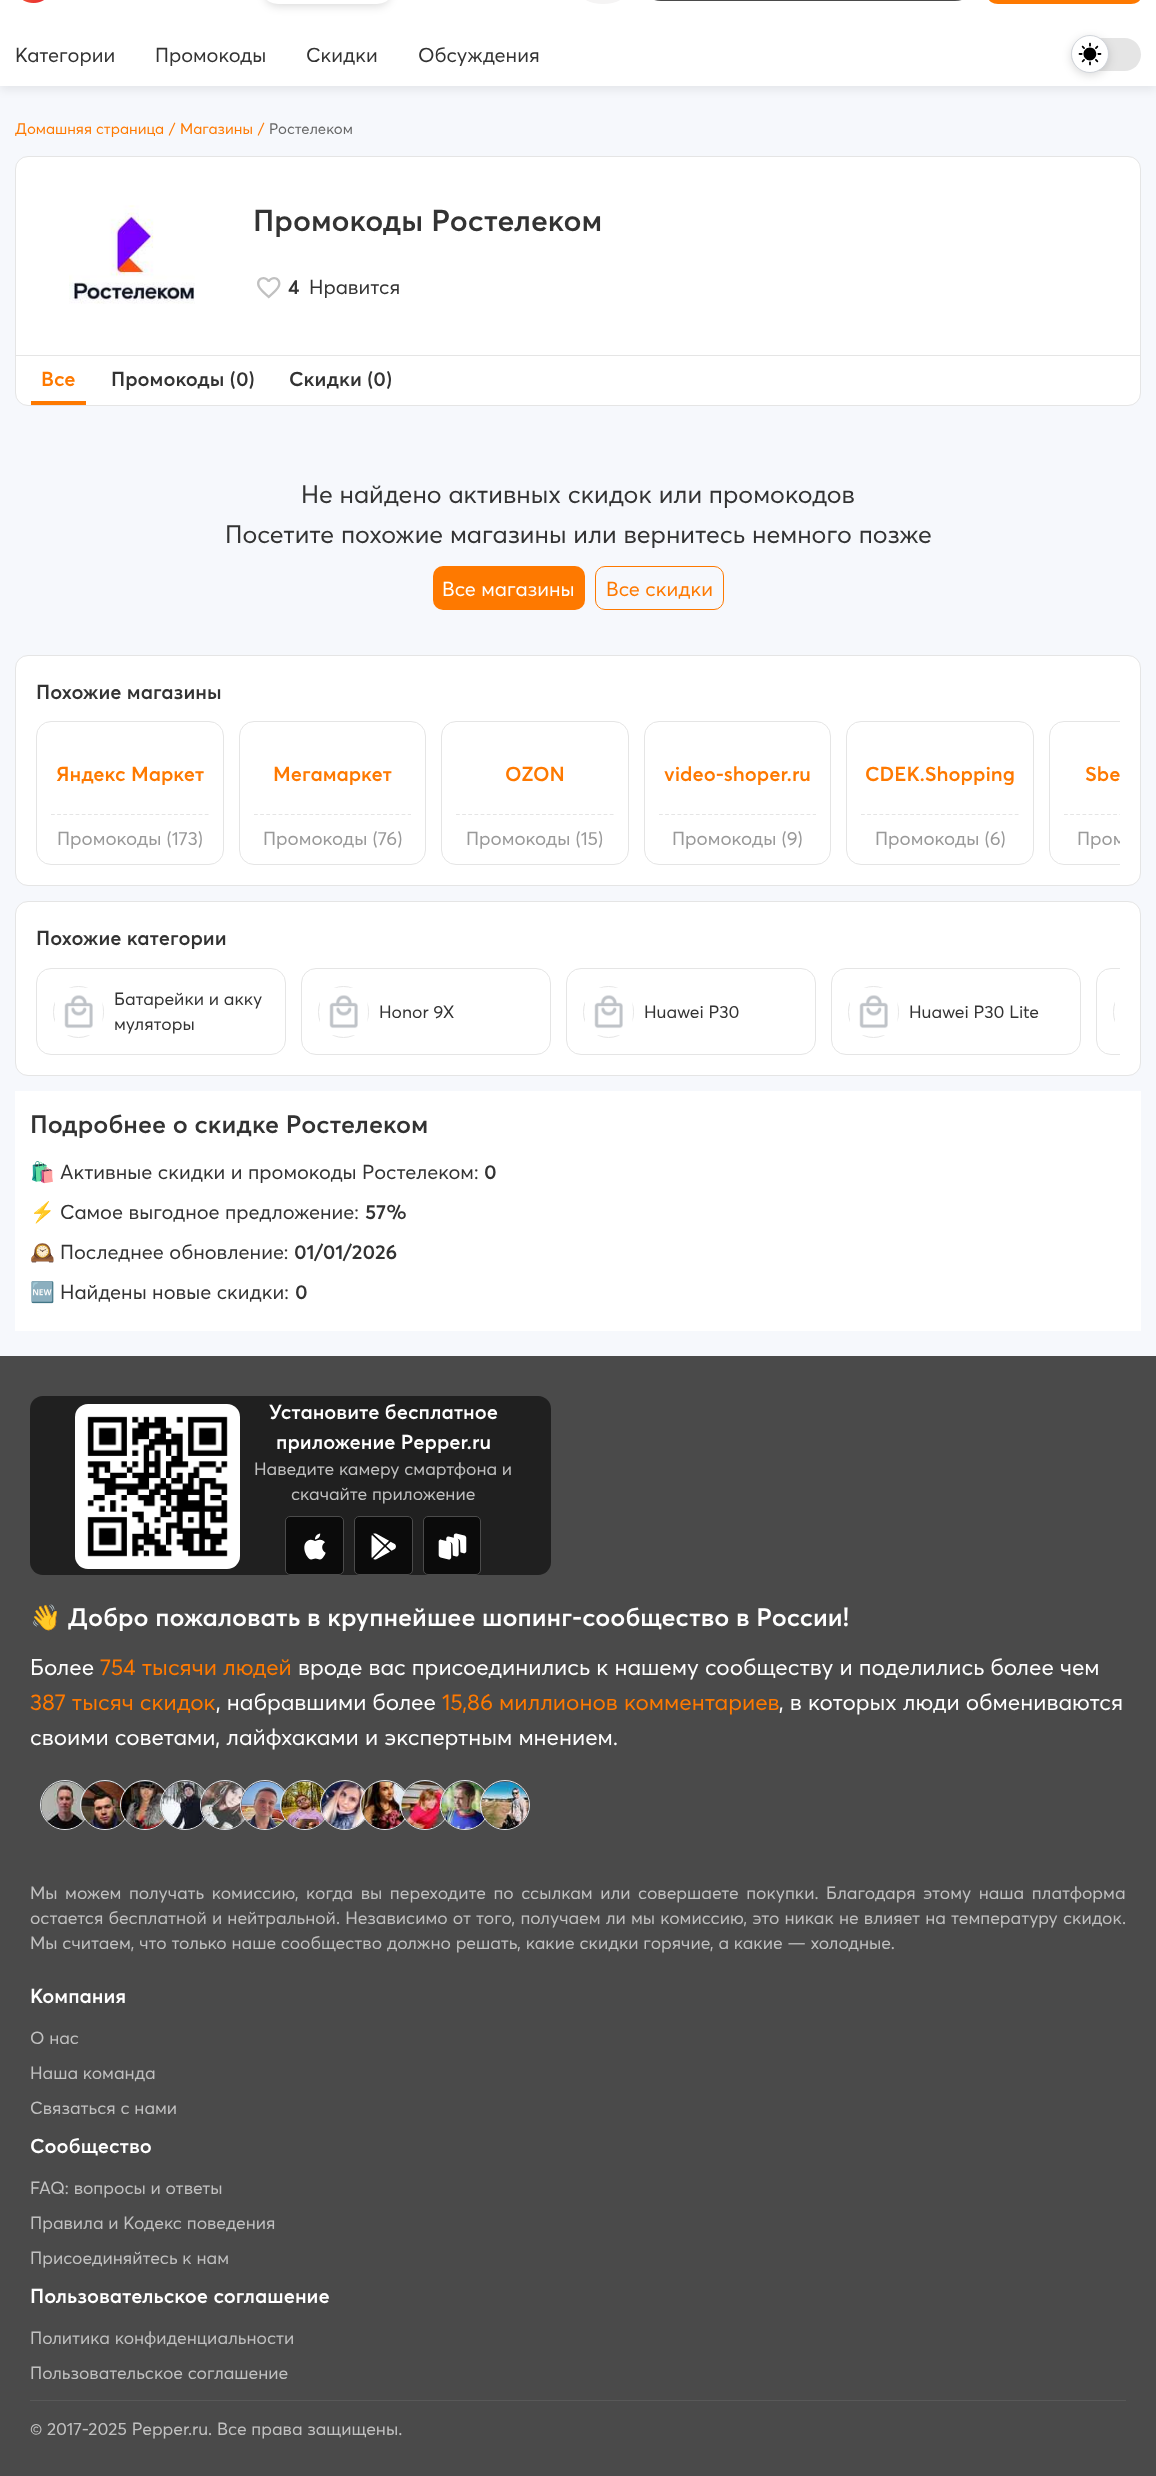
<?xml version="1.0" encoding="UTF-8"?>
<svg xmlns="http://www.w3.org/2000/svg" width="1156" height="2476">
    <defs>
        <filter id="blur1" x="-50%" y="-200%" width="200%" height="500%"><feGaussianBlur stdDeviation="5"/></filter>
        <clipPath id="clip1"><rect x="36" y="721" width="1084" height="144"/></clipPath>
        <clipPath id="clip2"><rect x="36" y="968" width="1084" height="87"/></clipPath>
    </defs>
    <rect width="100%" height="100%" fill="#F6F8FC"/>
    <rect x="0" y="-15" width="1156" height="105" fill="#000000" fill-opacity="0.07" filter="url(#blur1)"/>
    <rect x="0" y="0" width="1156" height="86" fill="#FFFFFF"/>
    <image x="23" y="0" width="21" height="3" href="img_01.png"/>
    <rect x="265" y="-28" width="125" height="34" rx="13" fill="#000000" fill-opacity="0.15" filter="url(#blur1)"/>
    <rect x="265" y="-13" width="125" height="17" rx="13" fill="#FFFFFF"/>
    <rect x="578" y="-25" width="50" height="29" rx="25" fill="#F5F4F4"/>
    <rect x="648" y="-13" width="320" height="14" rx="13" fill="#4A4A4A"/>
    <rect x="988" y="-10" width="153" height="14" rx="10" fill="#FE7900"/>
    <text x="15" y="62" font-family="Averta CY" font-size="20" fill="#333333">Категории</text>
    <text x="155" y="62" font-family="Averta CY" font-size="20" fill="#333333">Промокоды</text>
    <text x="306" y="62" font-family="Averta CY" font-size="20" fill="#333333">Скидки</text>
    <text x="418" y="62" font-family="Averta CY" font-size="20" fill="#333333">Обсуждения</text>
    <rect x="1071" y="38" width="70" height="33" rx="16.5" fill="#E5E5E5"/>
    <rect x="1071" y="38" width="38" height="37" rx="18.5" fill="#000000" fill-opacity="0.15" filter="url(#blur1)"/>
    <circle cx="1090" cy="54" r="18.5" fill="#FFFFFF" stroke="#D1D5DB"/>
    <image x="1078" y="42" width="24" height="24" href="img_02.png"/>
    <text x="15" y="134" font-family="Averta CY" font-size="15" fill="#FE7900">Домашняя страница</text>
    <text x="169" y="134" font-family="Averta CY" font-size="15" fill="#FE7900">/</text>
    <text x="180" y="134" font-family="Averta CY" font-size="15" fill="#FE7900">Магазины</text>
    <text x="258" y="134" font-family="Averta CY" font-size="15" fill="#FE7900">/</text>
    <text x="269" y="134" font-family="Averta CY" font-size="15" fill="#666666">Ростелеком</text>
    <rect x="15.5" y="156.5" width="1125" height="249" rx="12.5" fill="#FFFFFF" stroke="#E5E5E5"/>
    <image x="69" y="205" width="126" height="99" href="img_03.png"/>
    <text x="253" y="231" font-family="Averta CY" font-size="30" font-weight="600" fill="#333333">Промокоды Ростелеком</text>
    <image x="257" y="277" width="24" height="22" href="img_04.png"/>
    <text x="288" y="294" font-family="Averta CY" font-size="20" font-weight="600" fill="#333333">4</text>
    <text x="309" y="294" font-family="Averta CY" font-size="20" fill="#333333">Нравится</text>
    <rect x="16" y="355" width="1124" height="1" fill="#E5E5E5"/>
    <rect x="31" y="401" width="55" height="4" fill="#FE7900"/>
    <text x="41" y="386" font-family="Averta CY" font-size="20" font-weight="600" fill="#FE7900">Все</text>
    <text x="111" y="386" font-family="Averta CY" font-size="20" font-weight="600" fill="#333333">Промокоды (0)</text>
    <text x="289" y="386" font-family="Averta CY" font-size="20" font-weight="600" fill="#333333">Скидки (0)</text>
    <text x="301" y="503" font-family="Averta CY" font-size="25" fill="#333333">Не найдено активных скидок или промокодов</text>
    <text x="225" y="543" font-family="Averta CY" font-size="25" fill="#333333">Посетите похожие магазины или вернитесь немного позже</text>
    <rect x="433" y="566" width="152" height="44" rx="10" fill="#FE7900"/>
    <text x="442" y="596" font-family="Averta CY" font-size="20" fill="#FFFFFF">Все магазины</text>
    <rect x="595.5" y="566.5" width="128" height="43" rx="9.5" fill="none" stroke="#FE7900"/>
    <text x="606" y="596" font-family="Averta CY" font-size="20" fill="#FE7900">Все скидки</text>
    <rect x="15.5" y="655.5" width="1125" height="230" rx="12.5" fill="#FFFFFF" stroke="#E5E5E5"/>
    <text x="36" y="699" font-family="Averta CY" font-size="20" font-weight="600" fill="#333333">Похожие магазины</text>
    <rect x="36.5" y="721.5" width="187" height="143" rx="14.5" fill="none" stroke="#E5E5E5"/>
    <path d="M 51 814.5 H 209" fill="none" stroke="#E5E5E5" stroke-width="1.2" stroke-dasharray="3.75 2.4"/>
    <text x="56" y="781" font-family="Averta CY" font-size="20" font-weight="600" fill="#FE7900">Яндекс Маркет</text>
    <text x="57" y="845" font-family="Averta CY" font-size="18.75" fill="#999999">Промокоды (173)</text>
    <rect x="239.5" y="721.5" width="186" height="143" rx="14.5" fill="none" stroke="#E5E5E5"/>
    <path d="M 254 814.5 H 411" fill="none" stroke="#E5E5E5" stroke-width="1.2" stroke-dasharray="3.75 2.4"/>
    <text x="273" y="781" font-family="Averta CY" font-size="20" font-weight="600" fill="#FE7900">Мегамаркет</text>
    <text x="263" y="845" font-family="Averta CY" font-size="18.75" fill="#999999">Промокоды (76)</text>
    <rect x="441.5" y="721.5" width="187" height="143" rx="14.5" fill="none" stroke="#E5E5E5"/>
    <path d="M 456 814.5 H 614" fill="none" stroke="#E5E5E5" stroke-width="1.2" stroke-dasharray="3.75 2.4"/>
    <text x="505" y="781" font-family="Averta CY" font-size="20" font-weight="600" fill="#FE7900">OZON</text>
    <text x="466" y="845" font-family="Averta CY" font-size="18.75" fill="#999999">Промокоды (15)</text>
    <rect x="644.5" y="721.5" width="186" height="143" rx="14.5" fill="none" stroke="#E5E5E5"/>
    <path d="M 659 814.5 H 816" fill="none" stroke="#E5E5E5" stroke-width="1.2" stroke-dasharray="3.75 2.4"/>
    <text x="664" y="781" font-family="Averta CY" font-size="20" font-weight="600" fill="#FE7900">video-shoper.ru</text>
    <text x="672" y="845" font-family="Averta CY" font-size="18.75" fill="#999999">Промокоды (9)</text>
    <rect x="846.5" y="721.5" width="187" height="143" rx="14.5" fill="none" stroke="#E5E5E5"/>
    <path d="M 861 814.5 H 1019" fill="none" stroke="#E5E5E5" stroke-width="1.2" stroke-dasharray="3.75 2.4"/>
    <text x="865" y="781" font-family="Averta CY" font-size="20" font-weight="600" fill="#FE7900">CDEK.Shopping</text>
    <text x="875" y="845" font-family="Averta CY" font-size="18.75" fill="#999999">Промокоды (6)</text>
    <g clip-path="url(#clip1)">
        <rect x="1049.5" y="721.5" width="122" height="143" rx="14.5" fill="none" stroke="#E5E5E5"/>
        <path d="M 1064 814.5 H 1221" fill="none" stroke="#E5E5E5" stroke-width="1.2" stroke-dasharray="3.75 2.4"/>
    </g>
    <text x="1085" y="781" font-family="Averta CY" font-size="20" font-weight="600" fill="#FE7900">Sbe</text>
    <g clip-path="url(#clip1)">
        <text x="1077" y="845" font-family="Averta CY" font-size="18.75" fill="#999999">Пром</text>
    </g>
    <rect x="15.5" y="901.5" width="1125" height="174" rx="12.5" fill="#FFFFFF" stroke="#E5E5E5"/>
    <text x="36" y="945" font-family="Averta CY" font-size="20" font-weight="600" fill="#333333">Похожие категории</text>
    <rect x="36.5" y="968.5" width="249" height="86" rx="14.5" fill="none" stroke="#E5E5E5"/>
    <rect x="53.5" y="986.5" width="50" height="51" rx="25" fill="none" stroke="#E5E5E5"/>
    <image x="55" y="987" width="48" height="49" href="img_05.png"/>
    <text font-family="Averta CY" font-size="17.5" fill="#333333">
        <tspan x="114" y="1005">Батарейки и акку</tspan>
        <tspan x="114" y="1030">муляторы</tspan>
    </text>
    <rect x="301.5" y="968.5" width="249" height="86" rx="14.5" fill="none" stroke="#E5E5E5"/>
    <rect x="318.5" y="986.5" width="50" height="51" rx="25" fill="none" stroke="#E5E5E5"/>
    <image x="320" y="987" width="48" height="49" href="img_05.png"/>
    <text x="379" y="1018" font-family="Averta CY" font-size="17.5" fill="#333333">Honor 9X</text>
    <rect x="566.5" y="968.5" width="249" height="86" rx="14.5" fill="none" stroke="#E5E5E5"/>
    <rect x="583.5" y="986.5" width="50" height="51" rx="25" fill="none" stroke="#E5E5E5"/>
    <image x="585" y="987" width="48" height="49" href="img_05.png"/>
    <text x="644" y="1018" font-family="Averta CY" font-size="17.5" fill="#333333">Huawei P30</text>
    <rect x="831.5" y="968.5" width="249" height="86" rx="14.5" fill="none" stroke="#E5E5E5"/>
    <rect x="848.5" y="986.5" width="50" height="51" rx="25" fill="none" stroke="#E5E5E5"/>
    <image x="850" y="987" width="48" height="49" href="img_05.png"/>
    <text x="909" y="1018" font-family="Averta CY" font-size="17.5" fill="#333333">Huawei P30 Lite</text>
    <g clip-path="url(#clip2)">
        <rect x="1096.5" y="968.5" width="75" height="86" rx="14.5" fill="none" stroke="#E5E5E5"/>
        <rect x="1113.5" y="986.5" width="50" height="51" rx="25" fill="none" stroke="#E5E5E5"/>
    </g>
    <rect x="1115" y="994" width="5" height="36" fill="#FFFFFF"/>
    <rect x="15" y="1091" width="1126" height="240" fill="#FFFFFF"/>
    <text x="30" y="1133" font-family="Averta CY" font-size="25" font-weight="600" fill="#333333">Подробнее о скидке Ростелеком</text>
    <text x="30" y="1179" font-family="Noto Color Emoji" font-size="20" fill="#333333">🛍️</text>
    <text x="60" y="1179" font-family="Averta CY" font-size="20" fill="#333333">Активные скидки и промокоды Ростелеком:</text>
    <text x="484" y="1179" font-family="Averta CY" font-size="20" font-weight="600" fill="#333333">0</text>
    <text x="30" y="1219" font-family="Noto Color Emoji" font-size="20" fill="#333333">⚡</text>
    <text x="60" y="1219" font-family="Averta CY" font-size="20" fill="#333333">Самое выгодное предложение:</text>
    <text x="365" y="1219" font-family="Averta CY" font-size="20" font-weight="600" fill="#333333">57%</text>
    <text x="30" y="1259" font-family="Noto Color Emoji" font-size="20" fill="#333333">🕰️</text>
    <text x="60" y="1259" font-family="Averta CY" font-size="20" fill="#333333">Последнее обновление:</text>
    <text x="294" y="1259" font-family="Averta CY" font-size="20" font-weight="600" fill="#333333">01/01/2026</text>
    <text x="30" y="1299" font-family="Noto Color Emoji" font-size="20" fill="#333333">🆕</text>
    <text x="60" y="1299" font-family="Averta CY" font-size="20" fill="#333333">Найдены новые скидки:</text>
    <text x="295" y="1299" font-family="Averta CY" font-size="20" font-weight="600" fill="#333333">0</text>
    <rect x="0" y="1356" width="1156" height="1120" fill="#4A4A4A"/>
    <rect x="30" y="1396" width="521" height="179" rx="13" fill="#202020"/>
    <rect x="75" y="1404" width="165" height="165" rx="13" fill="#FFFFFF"/>
    <image x="87" y="1416" width="141" height="141" href="img_06.png"/>
    <text x="269" y="1419" font-family="Averta CY" font-size="20" font-weight="600" fill="#FFFFFF">Установите бесплатное</text>
    <text x="276" y="1449" font-family="Averta CY" font-size="20" font-weight="600" fill="#FFFFFF">приложение Pepper.ru</text>
    <text x="254" y="1475" font-family="Averta CY" font-size="17.5" fill="#C1C1C1">Наведите камеру смартфона и</text>
    <text x="291" y="1500" font-family="Averta CY" font-size="17.5" fill="#C1C1C1">скачайте приложение</text>
    <rect x="285.5" y="1516.5" width="58" height="58" rx="4.5" fill="#0B0B0B" stroke="#4B4B4B"/>
    <image x="304" y="1533" width="22" height="27" href="img_07.png"/>
    <rect x="354.5" y="1516.5" width="58" height="58" rx="4.5" fill="#0B0B0B" stroke="#4B4B4B"/>
    <image x="371" y="1533" width="25" height="27" href="img_08.png"/>
    <rect x="423.5" y="1516.5" width="57" height="58" rx="4.5" fill="#0B0B0B" stroke="#4B4B4B"/>
    <image x="438" y="1533" width="29" height="27" href="img_09.png"/>
    <text x="30" y="1626" font-family="Noto Color Emoji" font-size="25" font-weight="700" fill="#FFFFFF">👋</text>
    <text x="68" y="1626" font-family="Averta CY" font-size="25" font-weight="600" fill="#FFFFFF">Добро пожаловать в крупнейшее шопинг-сообщество в России!</text>
    <text x="30" y="1675" font-family="Averta CY" font-size="22.5" fill="#FFFFFF">Более</text>
    <text x="100" y="1675" font-family="Averta CY" font-size="22.5" fill="#FE7900">754 тысячи людей</text>
    <text x="298" y="1675" font-family="Averta CY" font-size="22.5" fill="#FFFFFF">вроде вас присоединились к нашему сообществу и поделились более чем</text>
    <text x="30" y="1710" font-family="Averta CY" font-size="22.5" fill="#FE7900">387 тысяч скидок</text>
    <text x="216" y="1710" font-family="Averta CY" font-size="22.5" fill="#FFFFFF">, набравшими более</text>
    <text x="442" y="1710" font-family="Averta CY" font-size="22.5" fill="#FE7900">15,86 миллионов комментариев</text>
    <text x="779" y="1710" font-family="Averta CY" font-size="22.5" fill="#FFFFFF">, в которых люди обмениваются</text>
    <text x="30" y="1745" font-family="Averta CY" font-size="22.5" fill="#FFFFFF">своими советами, лайфхаками и экспертным мнением.</text>
    <circle cx="65" cy="1805" r="24.5" fill="none" stroke="#E5E7EB"/>
    <image x="41" y="1781" width="45" height="48" href="img_10.png"/>
    <circle cx="105" cy="1805" r="24.5" fill="none" stroke="#E5E7EB"/>
    <image x="81" y="1781" width="45" height="48" href="img_11.png"/>
    <circle cx="145" cy="1805" r="24.5" fill="none" stroke="#E5E7EB"/>
    <image x="121" y="1781" width="45" height="48" href="img_12.png"/>
    <circle cx="185" cy="1805" r="24.5" fill="none" stroke="#E5E7EB"/>
    <image x="161" y="1781" width="45" height="48" href="img_13.png"/>
    <circle cx="225" cy="1805" r="24.5" fill="none" stroke="#E5E7EB"/>
    <image x="201" y="1781" width="45" height="48" href="img_14.png"/>
    <circle cx="265" cy="1805" r="24.5" fill="none" stroke="#E5E7EB"/>
    <image x="241" y="1781" width="45" height="48" href="img_15.png"/>
    <circle cx="305" cy="1805" r="24.5" fill="none" stroke="#E5E7EB"/>
    <image x="281" y="1781" width="45" height="48" href="img_16.png"/>
    <circle cx="345" cy="1805" r="24.5" fill="none" stroke="#E5E7EB"/>
    <image x="321" y="1781" width="45" height="48" href="img_17.png"/>
    <circle cx="385" cy="1805" r="24.5" fill="none" stroke="#E5E7EB"/>
    <image x="361" y="1781" width="45" height="48" href="img_18.png"/>
    <circle cx="425" cy="1805" r="24.5" fill="none" stroke="#E5E7EB"/>
    <image x="401" y="1781" width="45" height="48" href="img_19.png"/>
    <circle cx="465" cy="1805" r="24.5" fill="none" stroke="#E5E7EB"/>
    <image x="441" y="1781" width="45" height="48" href="img_20.png"/>
    <circle cx="505" cy="1805" r="24.5" fill="none" stroke="#E5E7EB"/>
    <image x="481" y="1781" width="48" height="48" href="img_21.png"/>
    <text font-family="Averta CY" font-size="17.5" fill="#C1C1C1">
        <tspan x="30" y="1899" word-spacing="2.75">Мы можем получать комиссию, когда вы переходите по ссылкам или совершаете покупки. Благодаря этому наша платформа</tspan>
        <tspan x="30" y="1924" word-spacing="0.4">остается бесплатной и нейтральной. Независимо от того, получаем ли мы комиссию, это никак не влияет на температуру скидок.</tspan>
        <tspan x="30" y="1949">Мы считаем, что только наше сообщество должно решать, какие скидки горячие, а какие — холодные.</tspan>
    </text>
    <text x="30" y="2003" font-family="Averta CY" font-size="20" font-weight="600" fill="#FFFFFF">Компания</text>
    <text x="30" y="2044" font-family="Averta CY" font-size="17.5" fill="#C1C1C1">О нас</text>
    <text x="30" y="2079" font-family="Averta CY" font-size="17.5" fill="#C1C1C1">Наша команда</text>
    <text x="30" y="2114" font-family="Averta CY" font-size="17.5" fill="#C1C1C1">Связаться с нами</text>
    <text x="30" y="2153" font-family="Averta CY" font-size="20" font-weight="600" fill="#FFFFFF">Сообщество</text>
    <text x="30" y="2194" font-family="Averta CY" font-size="17.5" fill="#C1C1C1">FAQ: вопросы и ответы</text>
    <text x="30" y="2229" font-family="Averta CY" font-size="17.5" fill="#C1C1C1">Правила и Кодекс поведения</text>
    <text x="30" y="2264" font-family="Averta CY" font-size="17.5" fill="#C1C1C1">Присоединяйтесь к нам</text>
    <text x="30" y="2303" font-family="Averta CY" font-size="20" font-weight="600" fill="#FFFFFF">Пользовательское соглашение</text>
    <text x="30" y="2344" font-family="Averta CY" font-size="17.5" fill="#C1C1C1">Политика конфиденциальности</text>
    <text x="30" y="2379" font-family="Averta CY" font-size="17.5" fill="#C1C1C1">Пользовательское соглашение</text>
    <rect x="30" y="2400" width="1096" height="1" fill="#585858"/>
    <text x="30" y="2435" font-family="Averta CY" font-size="17.5" fill="#C1C1C1">© 2017-2025 Pepper.ru. Все права защищены.</text>
</svg>
